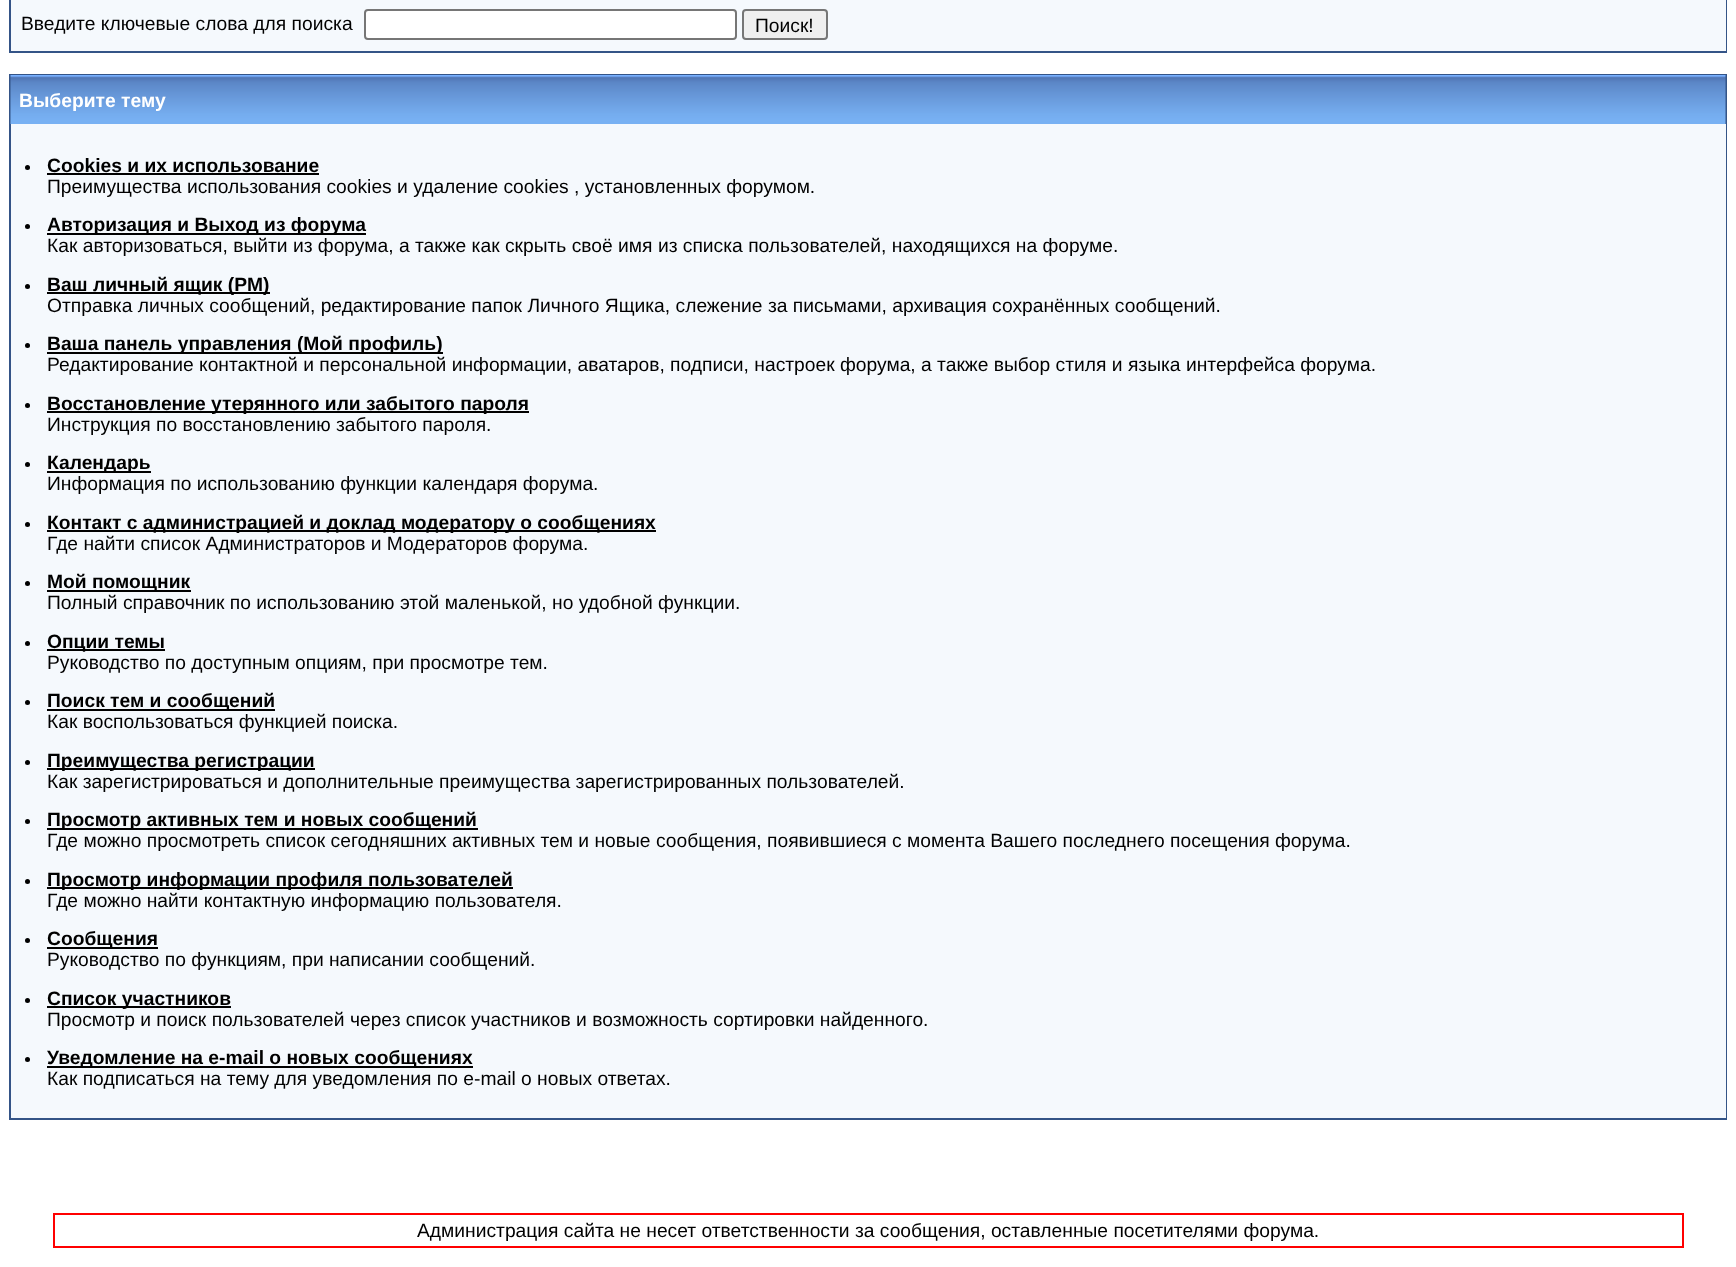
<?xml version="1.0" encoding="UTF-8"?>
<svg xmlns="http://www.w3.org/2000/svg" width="1736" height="1267">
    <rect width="100%" height="100%" fill="#FFFFFF"/>
    <rect x="10" y="-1" width="1716" height="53" fill="none" stroke="#345487" stroke-width="2"/>
    <rect x="11" y="0" width="1715" height="51" fill="#F5F9FD"/>
    <text x="21" y="30" font-family="Liberation Sans" font-size="19.25" fill="#000000">Введите ключевые слова для поиска</text>
    <rect x="365" y="10" width="371" height="29" rx="3" fill="#FFFFFF" stroke="#767676" stroke-width="2"/>
    <rect x="743" y="10" width="84" height="29" rx="3" fill="#EFEFEF" stroke="#767676" stroke-width="2"/>
    <text x="755" y="32" font-family="Liberation Sans" font-size="19.25" fill="#000000">Поиск!</text>
    <rect x="10" y="75" width="1716" height="1044" fill="none" stroke="#345487" stroke-width="2"/>
    <image x="10" y="75" width="1716" height="49" href="img_01.png"/>
    <text x="19" y="107" font-family="Liberation Sans" font-size="19.25" font-weight="700" fill="#FFFFFF">Выберите тему</text>
    <rect x="11" y="124" width="1715" height="994" fill="#F5F9FD"/>
    <circle cx="27.5" cy="167.5" r="2.5" fill="#000000"/>
    <text x="47" y="172" font-family="Liberation Sans" font-size="19.25" font-weight="700" fill="#000000">Cookies и их использование</text>
    <rect x="47" y="173" width="272" height="2" fill="#000000"/>
    <text x="47" y="193" font-family="Liberation Sans" font-size="19.25" fill="#000000">Преимущества использования cookies и удаление cookies , установленных форумом.</text>
    <circle cx="27.5" cy="226.5" r="2.5" fill="#000000"/>
    <rect x="47" y="233" width="319" height="2" fill="#000000"/>
    <text x="47" y="231" font-family="Liberation Sans" font-size="19.25" font-weight="700" fill="#000000">Авторизация и Выход из форума</text>
    <text x="47" y="252" font-family="Liberation Sans" font-size="19.25" fill="#000000">Как авторизоваться, выйти из форума, а также как скрыть своё имя из списка пользователей, находящихся на форуме.</text>
    <circle cx="27.5" cy="286.5" r="2.5" fill="#000000"/>
    <rect x="47" y="292" width="223" height="2" fill="#000000"/>
    <text x="47" y="291" font-family="Liberation Sans" font-size="19.25" font-weight="700" fill="#000000">Ваш личный ящик (PM)</text>
    <text x="47" y="312" font-family="Liberation Sans" font-size="19.25" fill="#000000">Отправка личных сообщений, редактирование папок Личного Ящика, слежение за письмами, архивация сохранённых сообщений.</text>
    <circle cx="27.5" cy="345.5" r="2.5" fill="#000000"/>
    <rect x="47" y="352" width="396" height="2" fill="#000000"/>
    <text x="47" y="350" font-family="Liberation Sans" font-size="19.25" font-weight="700" fill="#000000">Ваша панель управления (Мой профиль)</text>
    <text x="47" y="371" font-family="Liberation Sans" font-size="19.25" fill="#000000">Редактирование контактной и персональной информации, аватаров, подписи, настроек форума, а также выбор стиля и языка интерфейса форума.</text>
    <circle cx="27.5" cy="405.5" r="2.5" fill="#000000"/>
    <rect x="47" y="411" width="482" height="2" fill="#000000"/>
    <text x="47" y="410" font-family="Liberation Sans" font-size="19.25" font-weight="700" fill="#000000">Восстановление утерянного или забытого пароля</text>
    <text x="47" y="431" font-family="Liberation Sans" font-size="19.25" fill="#000000">Инструкция по восстановлению забытого пароля.</text>
    <circle cx="27.5" cy="464.5" r="2.5" fill="#000000"/>
    <rect x="47" y="471" width="104" height="2" fill="#000000"/>
    <text x="47" y="469" font-family="Liberation Sans" font-size="19.25" font-weight="700" fill="#000000">Календарь</text>
    <text x="47" y="490" font-family="Liberation Sans" font-size="19.25" fill="#000000">Информация по использованию функции календаря форума.</text>
    <circle cx="27.5" cy="524.5" r="2.5" fill="#000000"/>
    <rect x="47" y="530" width="609" height="2" fill="#000000"/>
    <text x="47" y="529" font-family="Liberation Sans" font-size="19.25" font-weight="700" fill="#000000">Контакт с администрацией и доклад модератору о сообщениях</text>
    <text x="47" y="550" font-family="Liberation Sans" font-size="19.25" fill="#000000">Где найти список Администраторов и Модераторов форума.</text>
    <circle cx="27.5" cy="583.5" r="2.5" fill="#000000"/>
    <rect x="47" y="590" width="144" height="2" fill="#000000"/>
    <text x="47" y="588" font-family="Liberation Sans" font-size="19.25" font-weight="700" fill="#000000">Мой помощник</text>
    <text x="47" y="609" font-family="Liberation Sans" font-size="19.25" fill="#000000">Полный справочник по использованию этой маленькой, но удобной функции.</text>
    <circle cx="27.5" cy="643.5" r="2.5" fill="#000000"/>
    <rect x="47" y="649" width="118" height="2" fill="#000000"/>
    <text x="47" y="648" font-family="Liberation Sans" font-size="19.25" font-weight="700" fill="#000000">Опции темы</text>
    <text x="47" y="669" font-family="Liberation Sans" font-size="19.25" fill="#000000">Руководство по доступным опциям, при просмотре тем.</text>
    <circle cx="27.5" cy="702.5" r="2.5" fill="#000000"/>
    <rect x="47" y="709" width="228" height="2" fill="#000000"/>
    <text x="47" y="707" font-family="Liberation Sans" font-size="19.25" font-weight="700" fill="#000000">Поиск тем и сообщений</text>
    <text x="47" y="728" font-family="Liberation Sans" font-size="19.25" fill="#000000">Как воспользоваться функцией поиска.</text>
    <circle cx="27.5" cy="762.5" r="2.5" fill="#000000"/>
    <rect x="47" y="768" width="268" height="2" fill="#000000"/>
    <text x="47" y="767" font-family="Liberation Sans" font-size="19.25" font-weight="700" fill="#000000">Преимущества регистрации</text>
    <text x="47" y="788" font-family="Liberation Sans" font-size="19.25" fill="#000000">Как зарегистрироваться и дополнительные преимущества зарегистрированных пользователей.</text>
    <circle cx="27.5" cy="821.5" r="2.5" fill="#000000"/>
    <rect x="47" y="828" width="431" height="2" fill="#000000"/>
    <text x="47" y="826" font-family="Liberation Sans" font-size="19.25" font-weight="700" fill="#000000">Просмотр активных тем и новых сообщений</text>
    <text x="47" y="847" font-family="Liberation Sans" font-size="19.25" fill="#000000">Где можно просмотреть список сегодняшних активных тем и новые сообщения, появившиеся с момента Вашего последнего посещения форума.</text>
    <circle cx="27.5" cy="881.5" r="2.5" fill="#000000"/>
    <rect x="47" y="887" width="466" height="2" fill="#000000"/>
    <text x="47" y="886" font-family="Liberation Sans" font-size="19.25" font-weight="700" fill="#000000">Просмотр информации профиля пользователей</text>
    <text x="47" y="907" font-family="Liberation Sans" font-size="19.25" fill="#000000">Где можно найти контактную информацию пользователя.</text>
    <circle cx="27.5" cy="940.5" r="2.5" fill="#000000"/>
    <rect x="47" y="947" width="111" height="2" fill="#000000"/>
    <text x="47" y="945" font-family="Liberation Sans" font-size="19.25" font-weight="700" fill="#000000">Сообщения</text>
    <text x="47" y="966" font-family="Liberation Sans" font-size="19.25" fill="#000000">Руководство по функциям, при написании сообщений.</text>
    <circle cx="27.5" cy="1000.5" r="2.5" fill="#000000"/>
    <rect x="47" y="1006" width="184" height="2" fill="#000000"/>
    <text x="47" y="1005" font-family="Liberation Sans" font-size="19.25" font-weight="700" fill="#000000">Список участников</text>
    <text x="47" y="1026" font-family="Liberation Sans" font-size="19.25" fill="#000000">Просмотр и поиск пользователей через список участников и возможность сортировки найденного.</text>
    <circle cx="27.5" cy="1059.5" r="2.5" fill="#000000"/>
    <rect x="47" y="1066" width="426" height="2" fill="#000000"/>
    <text x="47" y="1064" font-family="Liberation Sans" font-size="19.25" font-weight="700" fill="#000000">Уведомление на e-mail о новых сообщениях</text>
    <text x="47" y="1085" font-family="Liberation Sans" font-size="19.25" fill="#000000">Как подписаться на тему для уведомления по e-mail о новых ответах.</text>
    <rect x="54" y="1214" width="1629" height="33" fill="none" stroke="#FF0000" stroke-width="2"/>
    <text x="417" y="1237" font-family="Liberation Sans" font-size="19.25" fill="#000000">Администрация сайта не несет ответственности за сообщения, оставленные посетителями форума.</text>
</svg>
